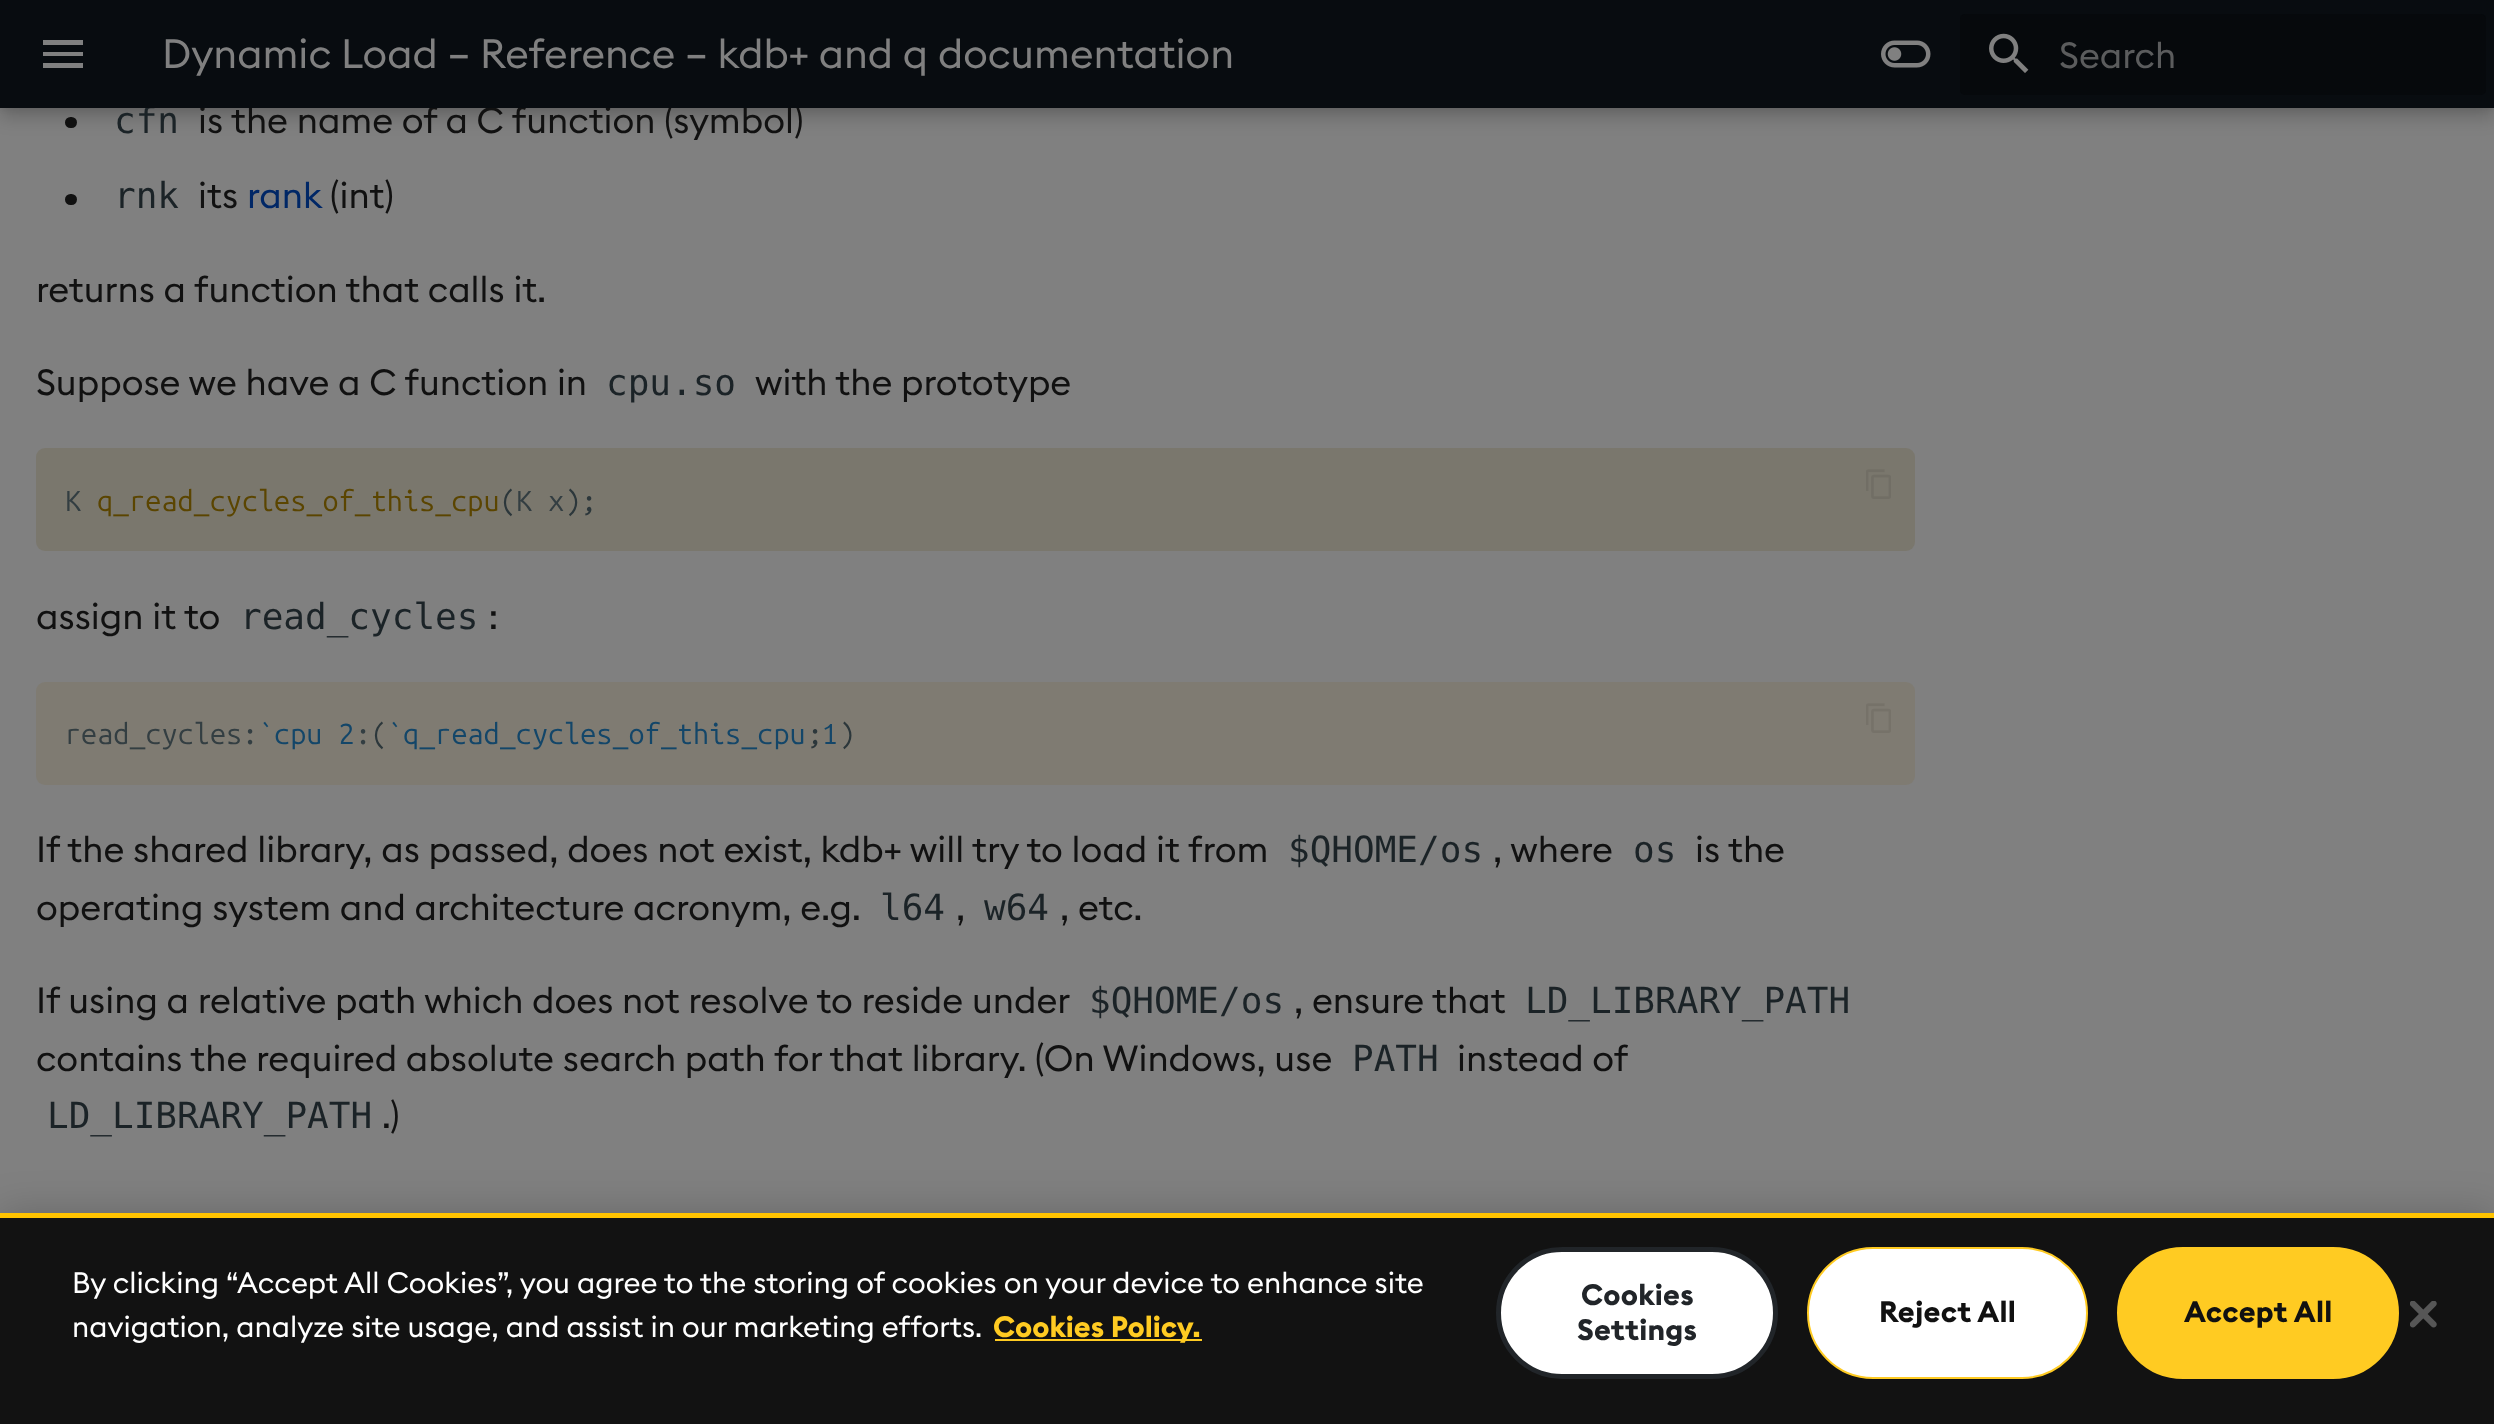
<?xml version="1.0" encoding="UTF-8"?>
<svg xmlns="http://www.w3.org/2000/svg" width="2494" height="1424">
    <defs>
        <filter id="blur1" x="-50%" y="-200%" width="200%" height="500%"><feGaussianBlur stdDeviation="9"/></filter>
        <filter id="blur2" x="-50%" y="-200%" width="200%" height="500%"><feGaussianBlur stdDeviation="4.5"/></filter>
        <filter id="blur3" x="-50%" y="-200%" width="200%" height="500%"><feGaussianBlur stdDeviation="20"/></filter>
    </defs>
    <rect width="100%" height="100%" fill="#808080"/>
    <rect x="65" y="117" width="12" height="11" rx="5.5" fill="#111111"/>
    <rect x="0" y="9" width="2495" height="108" fill="#000000" fill-opacity="0.2" filter="url(#blur1)"/>
    <rect x="0" y="0" width="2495" height="108" fill="#000000" fill-opacity="0.1" filter="url(#blur2)"/>
    <text x="114" y="133" font-family="DejaVu Sans Mono" font-size="36" fill="#1B2327">cfn</text>
    <text x="198" y="133" font-family="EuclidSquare" font-size="36" fill="#111111">is the name of a C function (symbol)</text>
    <rect x="0" y="0" width="2494" height="108" fill="#080C10"/>
    <path d="M 43 40 H 83 V 45 H 43 V 40 M 43 52 H 83 V 56 H 43 V 52 M 43 63 H 83 V 68 H 43 Z" fill="#808080"/>
    <text x="162" y="68" font-family="EuclidSquare" font-size="40.5" fill="#808080">Dynamic Load – Reference – kdb+ and q documentation</text>
    <image x="1881" y="40" width="50" height="28" href="img_01.png"/>
    <rect x="1960" y="14" width="526" height="81" rx="5" fill="#06090C"/>
    <image x="1989" y="33" width="40" height="40" href="img_02.png"/>
    <text x="2059" y="68" font-family="EuclidSquare" font-size="36" fill="#5B5C5D">Search</text>
    <rect x="65" y="194" width="12" height="11" rx="5.5" fill="#111111"/>
    <text x="114" y="208" font-family="DejaVu Sans Mono" font-size="36" fill="#1B2327">rnk</text>
    <text x="198" y="208" font-family="EuclidSquare" font-size="36" fill="#111111">its</text>
    <text x="247" y="208" font-family="EuclidSquare" font-size="36" fill="#002766">rank</text>
    <text x="330" y="208" font-family="EuclidSquare" font-size="36" fill="#111111">(int)</text>
    <text x="36" y="302" font-family="EuclidSquare" font-size="36" fill="#111111">returns a function that calls it.</text>
    <text x="36" y="395" font-family="EuclidSquare" font-size="36" fill="#111111">Suppose we have a C function in</text>
    <text x="606" y="395" font-family="DejaVu Sans Mono" font-size="36" fill="#1B2327">cpu.so</text>
    <text x="755" y="395" font-family="EuclidSquare" font-size="36" fill="#111111">with the prototype</text>
    <rect x="36" y="448" width="1879" height="103" rx="9" fill="#7A776D"/>
    <image x="1866" y="469" width="25" height="30" href="img_03.png"/>
    <text x="65" y="511" font-family="Ubuntu Mono" font-size="28.75" fill="#333E42">K</text>
    <text x="97" y="511" font-family="Ubuntu Mono" font-size="28.75" fill="#5B4500">q_read_cycles_of_this_cpu</text>
    <text x="500" y="511" font-family="Ubuntu Mono" font-size="28.75" fill="#2C373B">(</text>
    <text x="516" y="511" font-family="Ubuntu Mono" font-size="28.75" fill="#333E42">K x</text>
    <text x="565" y="511" font-family="Ubuntu Mono" font-size="28.75" fill="#2C373B">);</text>
    <text x="36" y="629" font-family="EuclidSquare" font-size="36" fill="#111111">assign it to</text>
    <text x="240" y="629" font-family="DejaVu Sans Mono" font-size="36" fill="#1B2327">read_cycles</text>
    <text x="489" y="629" font-family="EuclidSquare" font-size="36" fill="#111111">:</text>
    <rect x="36" y="682" width="1879" height="103" rx="9" fill="#7F7B72"/>
    <text x="65" y="744" font-family="Ubuntu Mono" font-size="28.75" fill="#333E42">read_cycles:</text>
    <text x="258" y="744" font-family="Ubuntu Mono" font-size="28.75" fill="#134669">`cpu 2</text>
    <text x="371" y="744" font-family="Ubuntu Mono" font-size="28.75" fill="#2C373B">(</text>
    <text x="387" y="744" font-family="Ubuntu Mono" font-size="28.75" fill="#134669">`q_read_cycles_of_this_cpu 1</text>
    <text x="355" y="744" font-family="Ubuntu Mono" font-size="28.75" fill="#333E42">:</text>
    <text x="807" y="744" font-family="Ubuntu Mono" font-size="28.75" fill="#2C373B">; )</text>
    <image x="1866" y="703" width="25" height="30" href="img_04.png"/>
    <text x="36" y="862" font-family="EuclidSquare" font-size="36" fill="#111111">If the shared library, as passed, does not exist, kdb+ will try to load it from</text>
    <text x="1288" y="862" font-family="DejaVu Sans Mono" font-size="36" fill="#1B2327">$QHOME/os</text>
    <text x="1493" y="862" font-family="EuclidSquare" font-size="36" fill="#111111">, where</text>
    <text x="1633" y="862" font-family="DejaVu Sans Mono" font-size="36" fill="#1B2327">os</text>
    <text x="1695" y="862" font-family="EuclidSquare" font-size="36" fill="#111111">is the</text>
    <text x="36" y="920" font-family="EuclidSquare" font-size="36" fill="#111111">operating system and architecture acronym, e.g.</text>
    <text x="880" y="920" font-family="DejaVu Sans Mono" font-size="36" fill="#1B2327">l64</text>
    <text x="956" y="920" font-family="EuclidSquare" font-size="36" fill="#111111">,</text>
    <text x="984" y="920" font-family="DejaVu Sans Mono" font-size="36" fill="#1B2327">w64</text>
    <text x="1060" y="920" font-family="EuclidSquare" font-size="36" fill="#111111">, etc.</text>
    <text x="36" y="1013" font-family="EuclidSquare" font-size="36" fill="#111111">If using a relative path which does not resolve to reside under</text>
    <text x="1089" y="1013" font-family="DejaVu Sans Mono" font-size="36" fill="#1B2327">$QHOME/os</text>
    <text x="1294" y="1013" font-family="EuclidSquare" font-size="36" fill="#111111">, ensure that</text>
    <text x="1525" y="1013" font-family="DejaVu Sans Mono" font-size="36" fill="#1B2327">LD_LIBRARY_PATH</text>
    <text x="36" y="1071" font-family="EuclidSquare" font-size="36" fill="#111111">contains the required absolute search path for that library. (On Windows, use</text>
    <text x="1352" y="1071" font-family="DejaVu Sans Mono" font-size="36" fill="#1B2327">PATH</text>
    <text x="1457" y="1071" font-family="EuclidSquare" font-size="36" fill="#111111">instead of</text>
    <text x="47" y="1128" font-family="DejaVu Sans Mono" font-size="36" fill="#1B2327">LD_LIBRARY_PATH</text>
    <text x="382" y="1128" font-family="EuclidSquare" font-size="36" fill="#111111">.)</text>
    <rect x="0" y="1213" width="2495" height="211" fill="#000000" fill-opacity="0.2" filter="url(#blur3)"/>
    <rect x="0" y="1218" width="2494" height="206" fill="#121212"/>
    <rect x="0" y="1213" width="2494" height="5" fill="#FFC300"/>
    <text font-family="EuclidSquare" font-size="29.25" fill="#FFFFFF">
        <tspan x="72" y="1293">By clicking “Accept All Cookies”, you agree to the storing of cookies on your device to enhance site</tspan>
        <tspan x="72" y="1337">navigation, analyze site usage, and assist in our marketing efforts.</tspan>
    </text>
    <rect x="995" y="1339" width="207" height="2" fill="#FFCB22"/>
    <text x="993" y="1337" font-family="EuclidSquare" font-size="29.25" font-weight="700" fill="#FFCB22">Cookies Policy.</text>
    <rect x="1498.5" y="1249.5" width="277" height="127" rx="63.5" fill="#FFFFFF" stroke="#212529" stroke-width="5"/>
    <text x="1581" y="1305" font-family="EuclidSquare" font-size="29.25" font-weight="700" letter-spacing="0.25" fill="#212529">Cookies</text>
    <text x="1577" y="1340" font-family="EuclidSquare" font-size="29.25" font-weight="700" letter-spacing="0.25" fill="#212529">Settings</text>
    <rect x="1808" y="1248" width="279" height="130" rx="65" fill="#FFFFFF" stroke="#FFCB22" stroke-width="2"/>
    <text x="1879" y="1322" font-family="EuclidSquare" font-size="29.25" font-weight="700" letter-spacing="0.25" fill="#111111">Reject All</text>
    <rect x="2118" y="1248" width="280" height="130" rx="65" fill="#FFCB22" stroke="#FFCB22" stroke-width="2"/>
    <text x="2184" y="1322" font-family="EuclidSquare" font-size="29.25" font-weight="700" letter-spacing="0.25" fill="#111111">Accept All</text>
    <image x="2410" y="1301" width="27" height="27" href="img_05.png"/>
</svg>
